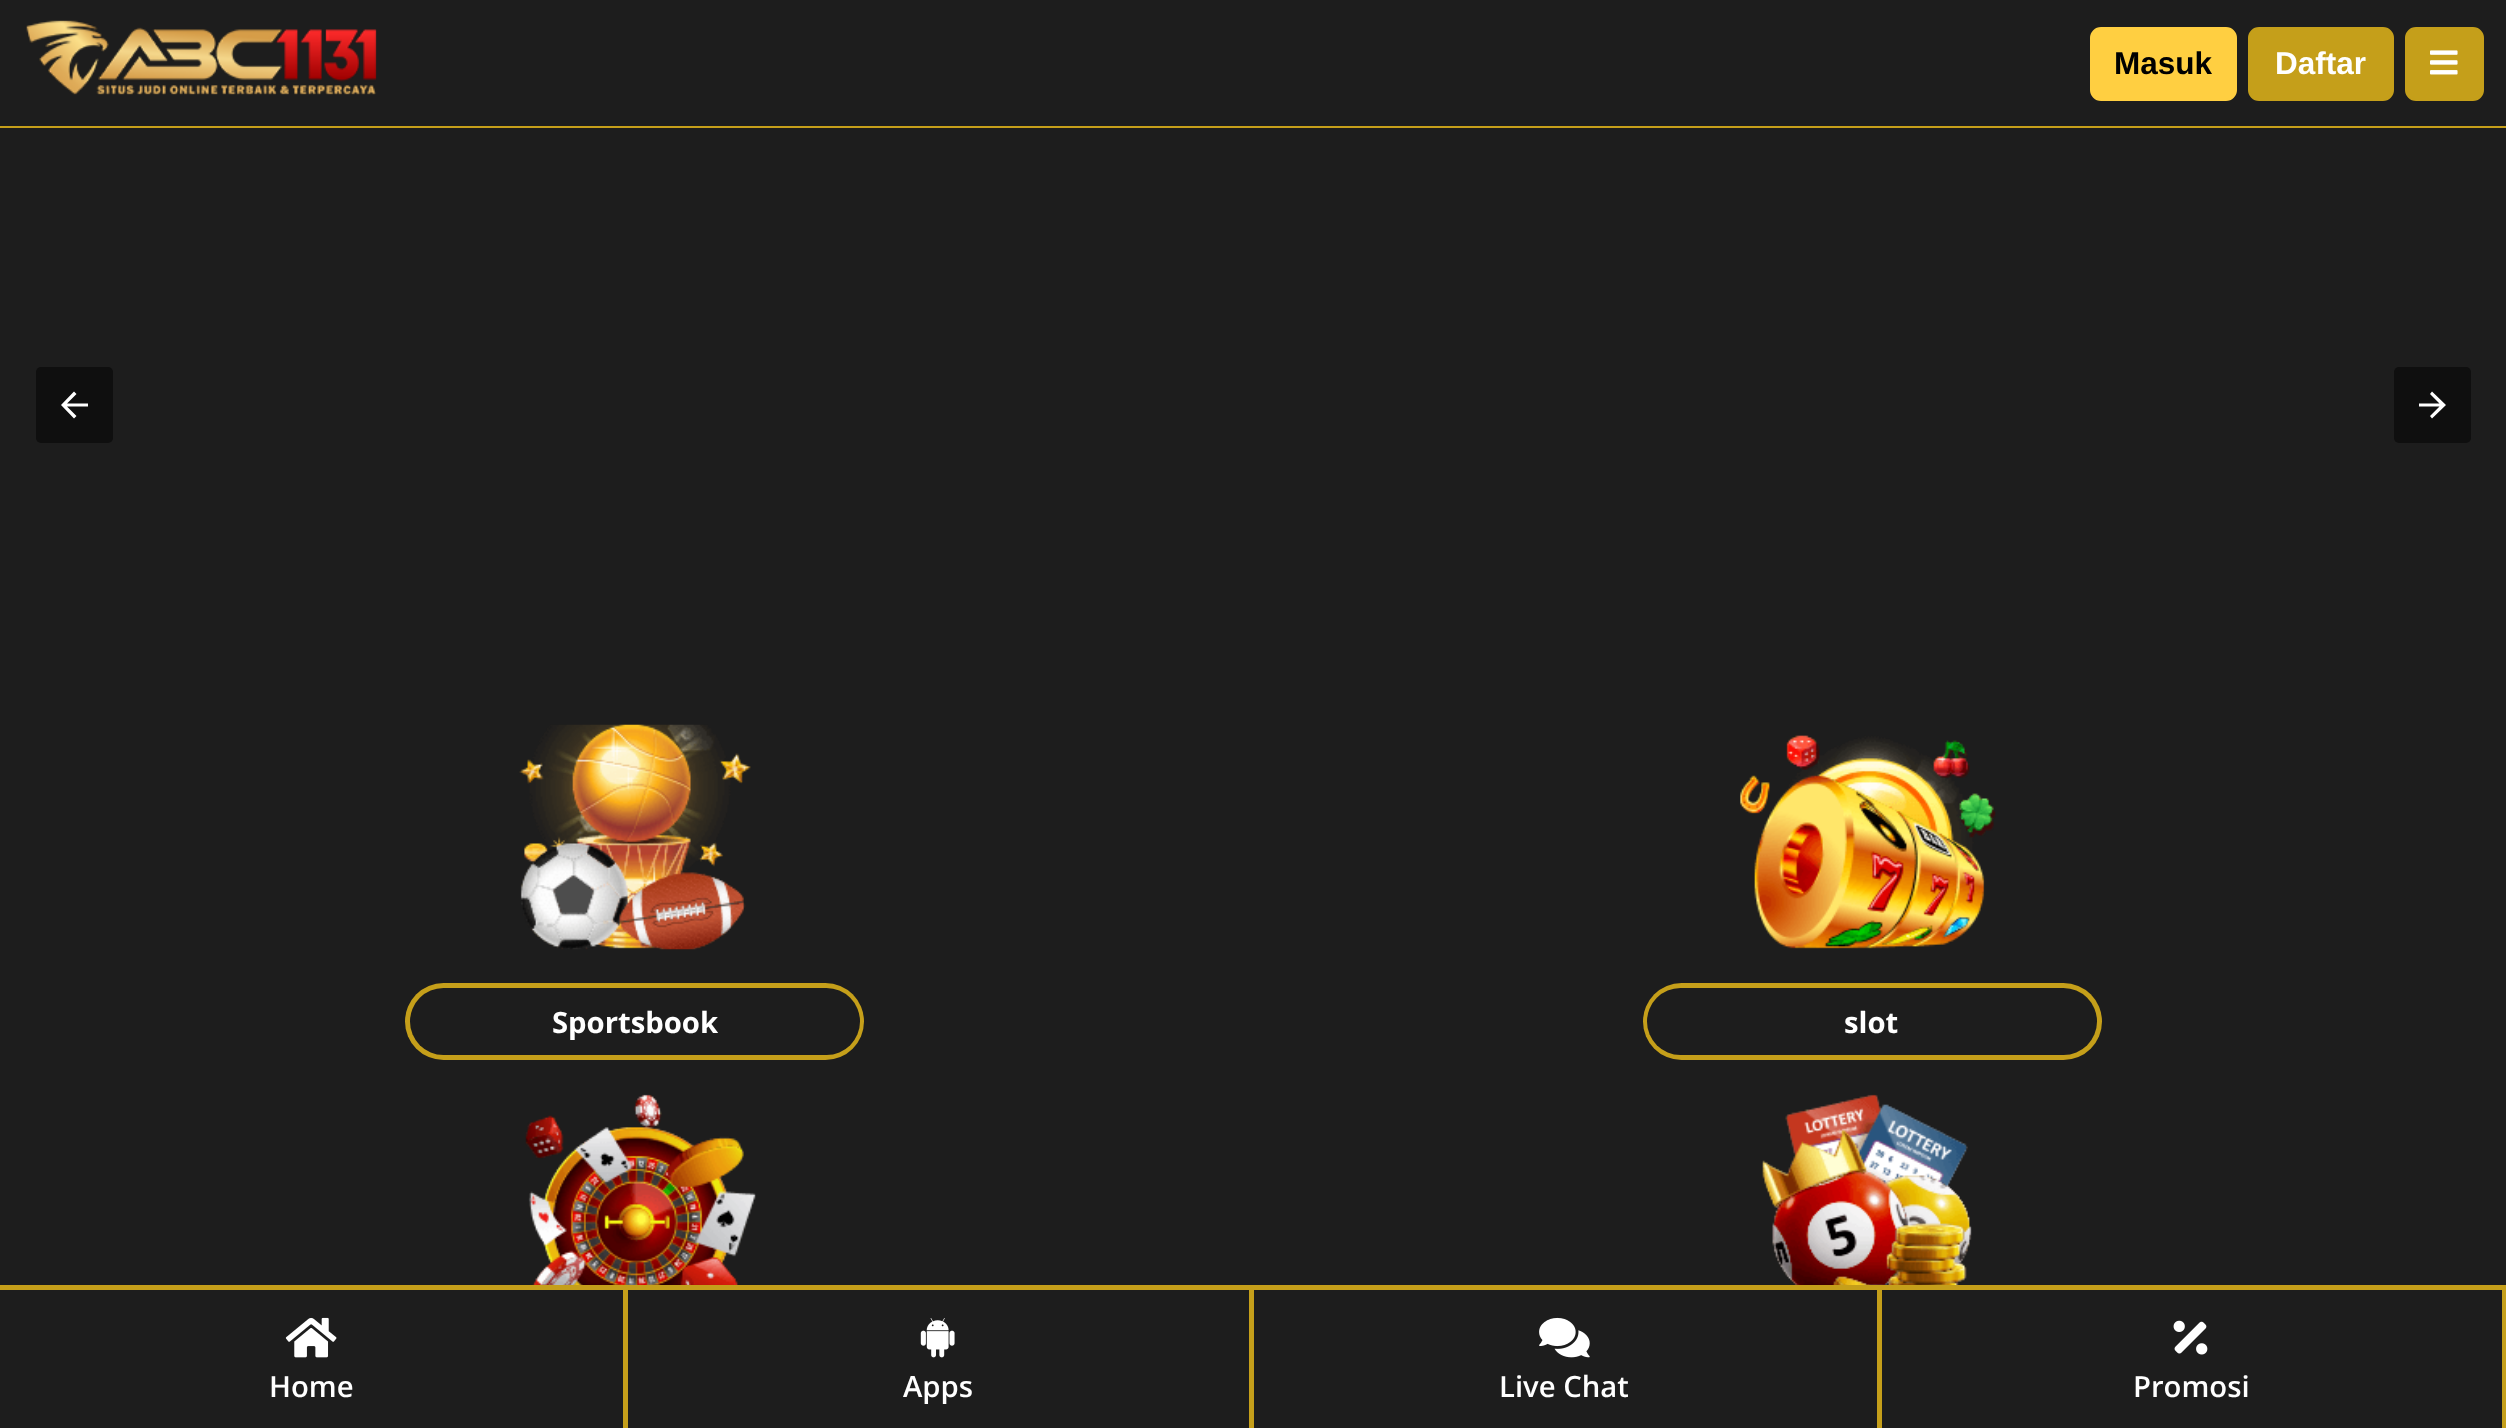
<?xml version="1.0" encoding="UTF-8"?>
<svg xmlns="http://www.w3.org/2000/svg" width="2506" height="1428">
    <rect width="100%" height="100%" fill="#1D1D1D"/>
    <rect x="0" y="126" width="2506" height="2" fill="#C59F1A"/>
    <image x="26" y="20" width="351" height="75" href="img_01.png"/>
    <rect x="2091" y="28" width="145" height="72" rx="10" fill="#FFCF41" stroke="#FFCF41" stroke-width="2"/>
    <text x="2114" y="74" font-family="Liberation Sans" font-size="31.5" font-weight="700" fill="#000000">Masuk</text>
    <rect x="2249" y="28" width="144" height="72" rx="10" fill="#C59F1A" stroke="#C59F1A" stroke-width="2"/>
    <text x="2275" y="74" font-family="Liberation Sans" font-size="31.5" font-weight="700" fill="#FFFFFF">Daftar</text>
    <rect x="2406" y="28" width="77" height="72" rx="10" fill="#C59F1A" stroke="#C59F1A" stroke-width="2"/>
    <image x="2430" y="50" width="28" height="25" href="img_02.png"/>
    <rect x="36" y="367" width="77" height="76" rx="5" fill="#0F0F0F"/>
    <path d="M 88 403.5 H 67 L 76.5 394 L 74 391.5 L 61 405 L 74 418.5 L 76.5 416 L 67 406.5 H 88 Z" fill="#FFFFFF"/>
    <rect x="2394" y="367" width="77" height="76" rx="5" fill="#0F0F0F"/>
    <path d="M 2432 391.5 L 2430 394 L 2439.5 403.5 H 2419 V 406.5 H 2439.5 L 2430 416 L 2432 418.5 L 2446 405 Z" fill="#FFFFFF"/>
    <image x="519" y="724" width="232" height="226" href="img_03.png"/>
    <rect x="405" y="983" width="459" height="77" rx="38.5" fill="#C59F1A"/>
    <rect x="410" y="988" width="450" height="67" rx="33.5" fill="#1D1D1D"/>
    <text x="552" y="1033" font-family="Open Sans" font-size="29.25" font-weight="700" fill="#FFFFFF">Sportsbook</text>
    <image x="1740" y="735" width="256" height="214" href="img_04.png"/>
    <rect x="1643" y="983" width="459" height="77" rx="38.5" fill="#C59F1A"/>
    <rect x="1647" y="988" width="450" height="67" rx="33.5" fill="#1D1D1D"/>
    <text x="1844" y="1033" font-family="Open Sans" font-size="29.25" font-weight="700" fill="#FFFFFF">slot</text>
    <image x="525" y="1094" width="231" height="191" href="img_05.png"/>
    <image x="1762" y="1094" width="210" height="191" href="img_06.png"/>
    <rect x="0" y="1285" width="1253" height="5" fill="#C59F1A"/>
    <rect x="623" y="1285" width="5" height="143" fill="#C59F1A"/>
    <image x="285" y="1317" width="52" height="41" href="img_07.png"/>
    <text x="269" y="1397" font-family="Open Sans" font-size="29.25" font-weight="600" fill="#FFFFFF">Home</text>
    <rect x="1249" y="1285" width="5" height="143" fill="#C59F1A"/>
    <image x="920" y="1318" width="35" height="40" href="img_08.png"/>
    <text x="903" y="1397" font-family="Open Sans" font-size="29.25" font-weight="600" fill="#FFFFFF">Apps</text>
    <rect x="1253" y="1285" width="628" height="5" fill="#C59F1A"/>
    <rect x="1877" y="1285" width="5" height="143" fill="#C59F1A"/>
    <image x="1539" y="1317" width="51" height="41" href="img_09.png"/>
    <text x="1499" y="1397" font-family="Open Sans" font-size="29.25" font-weight="600" fill="#FFFFFF">Live Chat</text>
    <rect x="1881" y="1285" width="625" height="5" fill="#C59F1A"/>
    <rect x="2502" y="1285" width="4" height="143" fill="#C59F1A"/>
    <image x="2173" y="1320" width="35" height="35" href="img_10.png"/>
    <text x="2133" y="1397" font-family="Open Sans" font-size="29.25" font-weight="600" fill="#FFFFFF">Promosi</text>
</svg>
